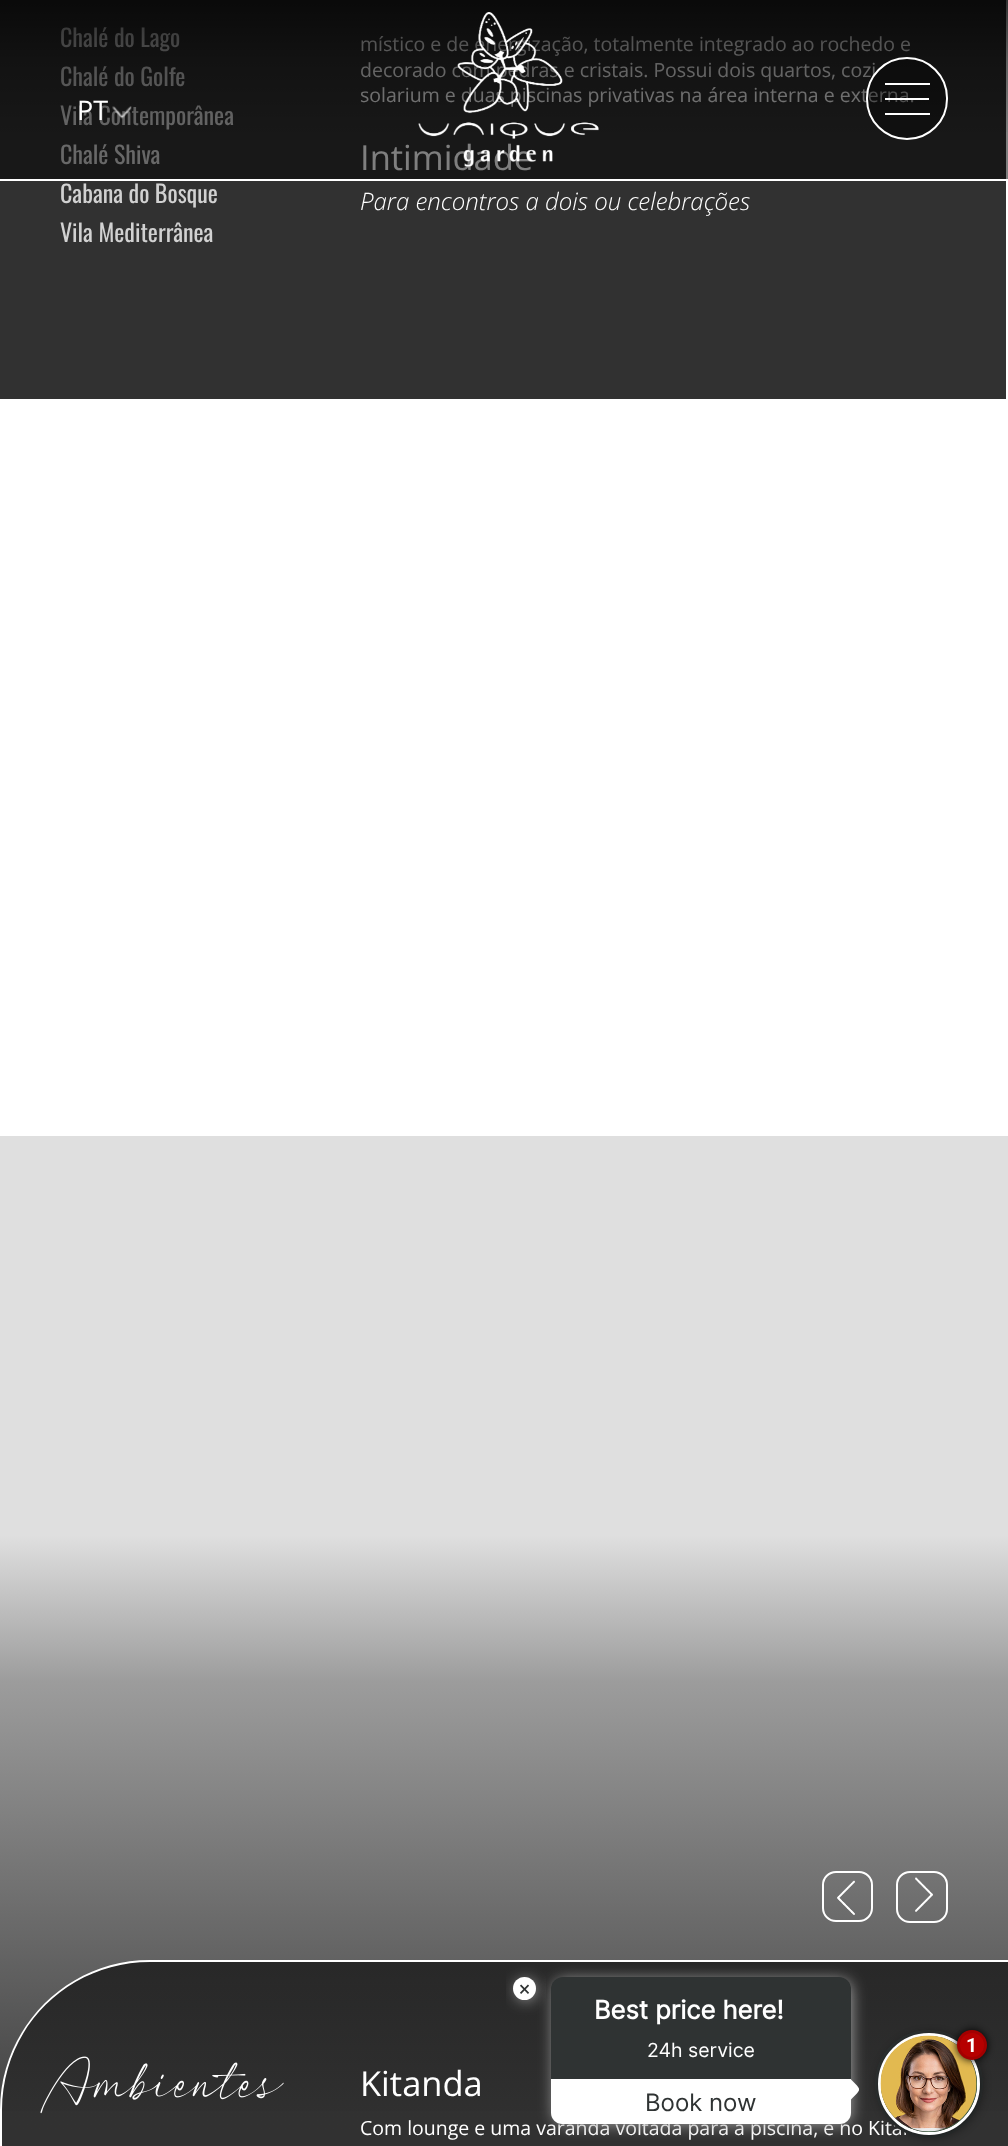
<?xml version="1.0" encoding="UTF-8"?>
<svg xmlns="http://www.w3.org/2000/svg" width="1008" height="2146">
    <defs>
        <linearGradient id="g1" gradientUnits="userSpaceOnUse" x1="503" y1="-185" x2="503" y2="399"><stop offset="0" stop-color="#393939"/><stop offset="0.25" stop-color="#313131"/></linearGradient>
        <linearGradient id="g2" gradientUnits="userSpaceOnUse" x1="504" y1="0" x2="504" y2="179"><stop offset="0" stop-color="#000000" stop-opacity="0.6"/><stop offset="0.34" stop-color="#000000" stop-opacity="0.25"/><stop offset="0.66" stop-color="#000000" stop-opacity="0.06"/><stop offset="0.78" stop-color="#000000" stop-opacity="0"/></linearGradient>
        <linearGradient id="g3" gradientUnits="userSpaceOnUse" x1="504" y1="1136" x2="504" y2="2111"><stop offset="0.41" stop-color="#DFDFDF"/><stop offset="0.56" stop-color="#9C9C9C"/><stop offset="1" stop-color="#434343"/></linearGradient>
        <clipPath id="clip1"><path d="M 150 1961 H 1008 V 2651 H 0 V 2111 C 0 2028 67 1961 150 1961 Z"/></clipPath>
        <linearGradient id="g4" gradientUnits="userSpaceOnUse" x1="505" y1="1962" x2="505" y2="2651"><stop offset="0" stop-color="#313131" stop-opacity="0.7"/><stop offset="0.25" stop-color="#313131"/></linearGradient>
        <filter id="blur1" x="-50%" y="-200%" width="200%" height="500%"><feGaussianBlur stdDeviation="7.5"/></filter>
        <filter id="blur2" x="-50%" y="-200%" width="200%" height="500%"><feGaussianBlur stdDeviation="4"/></filter>
    </defs>
    <rect width="100%" height="100%" fill="#FFFFFF"/>
    <rect x="0" y="0" width="1006" height="399" fill="url(#g1)"/>
    <text font-family="Oswald" font-size="24" fill="#D1D1D1">
        <tspan x="60" y="47">Chalé do Lago</tspan>
        <tspan x="60" y="86">Chalé do Golfe</tspan>
        <tspan x="60" y="125">Vila Contemporânea</tspan>
        <tspan x="60" y="164">Chalé Shiva</tspan>
        <tspan x="60" y="203">Cabana do Bosque</tspan>
        <tspan x="60" y="242">Vila Mediterrânea</tspan>
    </text>
    <text font-family="Open Sans" font-size="19.5" fill="#FFFFFF">
        <tspan x="360" y="51">místico e de energização, totalmente integrado ao rochedo e</tspan>
        <tspan x="360" y="77">decorado com pedras e cristais. Possui dois quartos, cozi</tspan>
        <tspan x="360" y="102">solarium e duas piscinas privativas na área interna e externa.</tspan>
    </text>
    <text x="360" y="170" font-family="Open Sans" font-size="34.5" fill="#FFFFFF">Intimidade</text>
    <text x="360" y="210" font-family="Open Sans" font-size="24" font-weight="300" font-style="italic" fill="#FFFFFF">Para encontros a dois ou celebrações</text>
    <rect x="0" y="0" width="1008" height="179" fill="#000000" fill-opacity="0.5"/>
    <rect x="0" y="0" width="1008" height="132" fill="url(#g2)"/>
    <rect x="0" y="179" width="1008" height="2" fill="#FFFFFF"/>
    <text x="77" y="120" font-family="Open Sans" font-size="27" fill="#FFFFFF">PT</text>
    <image x="112" y="106" width="20" height="13" href="img_01.png"/>
    <image x="418" y="12" width="181" height="155" href="img_02.png"/>
    <rect x="867" y="58" width="80" height="81" rx="40" fill="#000000" fill-opacity="0.3" stroke="#FFFFFF" stroke-width="2"/>
    <rect x="885" y="83" width="45" height="2" fill="#FFFFFF"/>
    <rect x="885" y="98" width="44" height="2" fill="#FFFFFF"/>
    <rect x="885" y="113" width="45" height="2" fill="#FFFFFF"/>
    <rect x="0" y="1136" width="1008" height="975" fill="url(#g3)"/>
    <path d="M 150 1961 H 1008 V 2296 H 0 V 2111 C 0 2028 67 1961 150 1961 Z" fill="#000000" fill-opacity="0.8"/>
    <g clip-path="url(#clip1)">
        <rect x="0" y="1962" width="1008" height="184" fill="url(#g4)"/>
    </g>
    <path d="M 150 1960 H 1008 V 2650 H 0 V 2110 C 0 2028 67 1960 150 1960 Z M 150 1962 H 1008 V 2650 H 2 V 2110 C 2 2028 68 1962 150 1962 Z" fill="#FFFFFF" fill-rule="evenodd"/>
    <text x="360" y="2135" font-family="Open Sans" font-size="19.5" fill="#FFFFFF">Com lounge e uma varanda voltada para a piscina, é no Kitan</text>
    <circle cx="929" cy="2084" r="52.5" fill="none" stroke="#2F3333" stroke-width="3"/>
    <rect x="884" y="2039" width="93" height="93" rx="46.5" fill="#000000" filter="url(#blur1)"/>
    <circle cx="929" cy="2084" r="49.5" fill="none" stroke="#FFFFFF" stroke-width="3"/>
    <rect x="554" y="1980" width="297" height="144" rx="11" fill="#AAAAAA" filter="url(#blur1)"/>
    <rect x="551" y="1977" width="300" height="147" rx="12" fill="#2F3333"/>
    <rect x="516" y="1980" width="20" height="20" rx="10" fill="#AAAAAA" filter="url(#blur1)"/>
    <circle cx="524.5" cy="1988.5" r="11.5" fill="#FFFFFF"/>
    <text x="519" y="1996" font-family="Roboto" font-size="21" fill="#2F3333">×</text>
    <text x="594" y="2019" font-family="Inter" font-size="25.5" font-weight="700" fill="#FFFFFF">Best price here!</text>
    <text x="647" y="2057" font-family="Inter" font-size="19.5" fill="#FFFFFF">24h service</text>
    <path d="M 551 2079 H 851 V 2113 C 851 2119 846 2124 840 2124 H 562 C 556 2124 551 2119 551 2113 Z" fill="#FFFFFF"/>
    <path d="M 850.5 2079 C 862 2090.5 862 2088.5 850.5 2100 L 840 2089.5 Z" fill="#FFFFFF"/>
    <text x="645" y="2111" font-family="Inter" font-size="24" fill="#2F3333">Book now</text>
    <circle cx="929" cy="2084" r="48" fill="#476749"/>
    <image x="880" y="2035" width="97" height="97" href="img_03.png"/>
    <rect x="957" y="2030" width="30" height="30" rx="15" fill="#000000" filter="url(#blur2)"/>
    <circle cx="972" cy="2045" r="13.5" fill="#B60000" stroke="#A30000" stroke-width="3"/>
    <text x="966" y="2052" font-family="Roboto" font-size="19.5" font-weight="700" fill="#FFFFFF">1</text>
    <image x="837" y="1880" width="18" height="35" href="img_04.png"/>
    <rect x="823" y="1872" width="49" height="49" rx="13" fill="none" stroke="#FFFFFF" stroke-width="2"/>
    <image x="915" y="1877" width="18" height="35" href="img_05.png"/>
    <rect x="897" y="1872" width="50" height="50" rx="13" fill="none" stroke="#FFFFFF" stroke-width="2"/>
    <image x="40" y="2056" width="244" height="58" href="img_06.png"/>
    <text x="360" y="2096" font-family="Open Sans" font-size="34.5" fill="#FFFFFF">Kitanda</text>
</svg>
